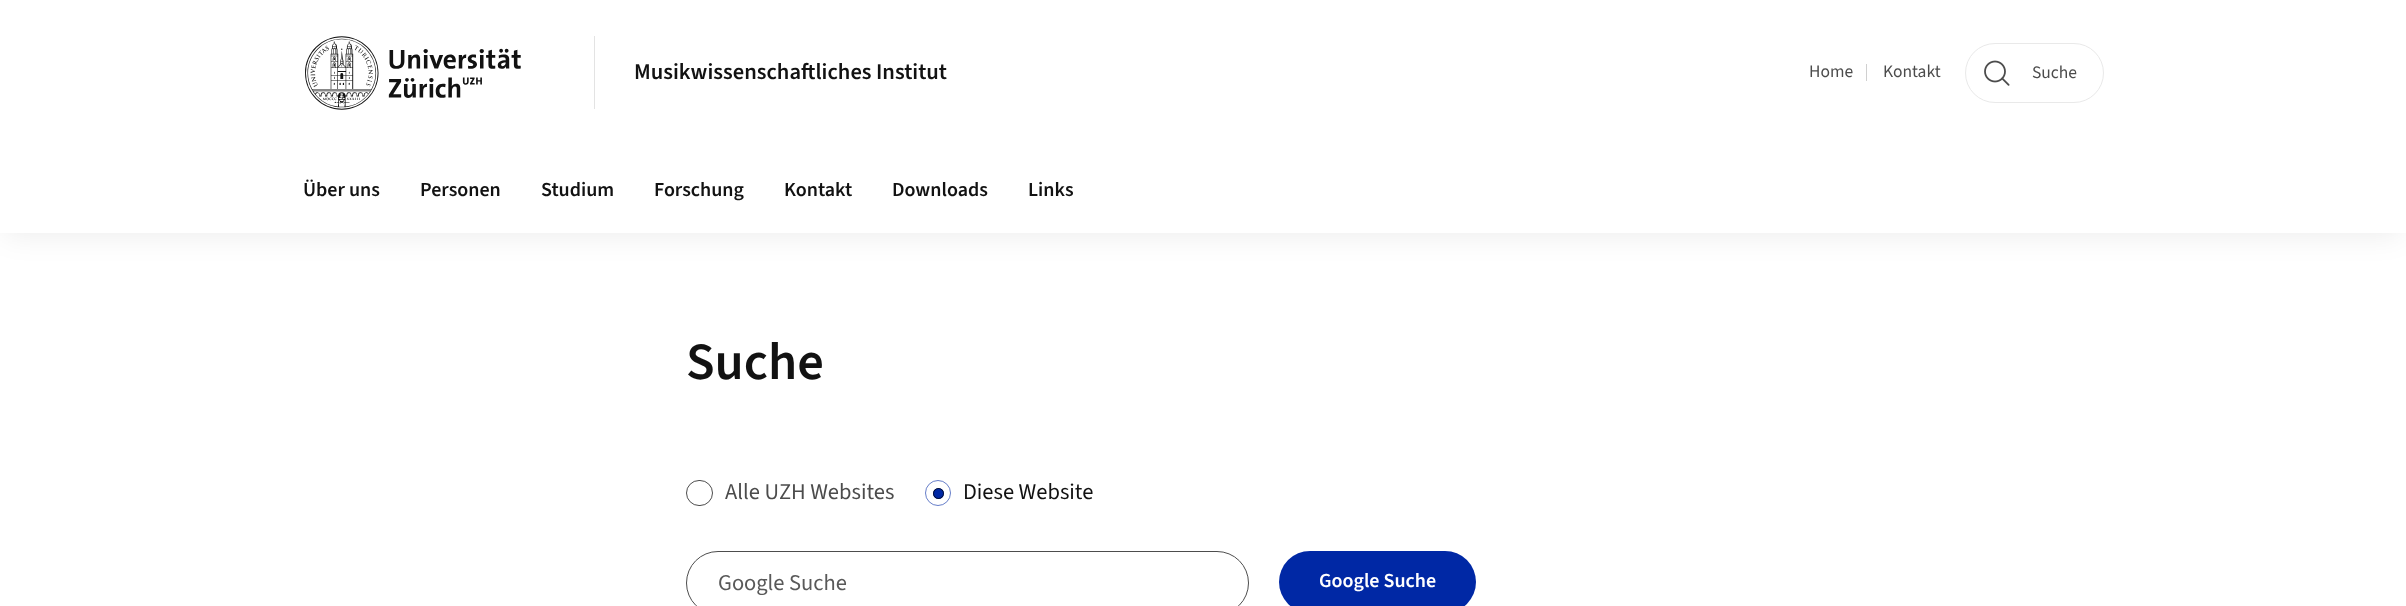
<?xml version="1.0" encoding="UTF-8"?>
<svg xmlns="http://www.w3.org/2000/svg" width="2406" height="606">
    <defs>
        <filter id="blur1" x="-50%" y="-200%" width="200%" height="500%"><feGaussianBlur stdDeviation="14"/></filter>
    </defs>
    <rect width="100%" height="100%" fill="#FFFFFF"/>
    <rect x="5" y="14" width="2396" height="222" fill="#121212" fill-opacity="0.07" filter="url(#blur1)"/>
    <rect x="0" y="0" width="2406" height="233" fill="#FFFFFF"/>
    <image x="305" y="36" width="216" height="74" href="img_01.png"/>
    <rect x="594" y="36" width="1" height="73" fill="#E3E3E3"/>
    <text x="634" y="79" font-family="'Source Sans 3'" font-size="22.5" font-weight="600" fill="#121212">Musikwissenschaftliches Institut</text>
    <text x="1809" y="77" font-family="'Source Sans 3'" font-size="17.5" fill="#4C4C4C">Home</text>
    <rect x="1866" y="64" width="1" height="17" fill="#D0D0D0"/>
    <text x="1883" y="77" font-family="'Source Sans 3'" font-size="17.5" fill="#4C4C4C">Kontakt</text>
    <rect x="1965.5" y="43.5" width="138" height="59" rx="29.5" fill="none" stroke="#E9E9E9"/>
    <image x="1984" y="60" width="26" height="26" href="img_02.png"/>
    <text x="2032" y="78" font-family="'Source Sans 3'" font-size="17.5" fill="#4C4C4C">Suche</text>
    <text x="303" y="196" font-family="'Source Sans 3'" font-size="20" font-weight="600" fill="#121212">Über uns</text>
    <text x="420" y="196" font-family="'Source Sans 3'" font-size="20" font-weight="600" fill="#121212">Personen</text>
    <text x="541" y="196" font-family="'Source Sans 3'" font-size="20" font-weight="600" fill="#121212">Studium</text>
    <text x="654" y="196" font-family="'Source Sans 3'" font-size="20" font-weight="600" fill="#121212">Forschung</text>
    <text x="784" y="196" font-family="'Source Sans 3'" font-size="20" font-weight="600" fill="#121212">Kontakt</text>
    <text x="892" y="196" font-family="'Source Sans 3'" font-size="20" font-weight="600" fill="#121212">Downloads</text>
    <text x="1028" y="196" font-family="'Source Sans 3'" font-size="20" font-weight="600" fill="#121212">Links</text>
    <text x="686" y="379" font-family="'Source Sans 3'" font-size="52.5" font-weight="600" fill="#121212">Suche</text>
    <rect x="686.5" y="480.5" width="26" height="25" rx="12.5" fill="none" stroke="#4D4D4D"/>
    <text x="725" y="499" font-family="'Source Sans 3'" font-size="22.5" fill="#4C4C4C">Alle UZH Websites</text>
    <circle cx="938" cy="493" r="12.5" fill="none" stroke="#667EC9"/>
    <text x="963" y="499" font-family="'Source Sans 3'" font-size="22.5" fill="#121212">Diese Website</text>
    <circle cx="938.5" cy="493.5" r="5.5" fill="#0028A5"/>
    <circle cx="938.5" cy="493.5" r="5" fill="none" stroke="#000000" stroke-opacity="0.7"/>
    <rect x="686.5" y="551.5" width="562" height="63" rx="31.5" fill="none" stroke="#4D4D4D"/>
    <text x="718" y="590" font-family="'Source Sans 3'" font-size="22.5" fill="#595959">Google Suche</text>
    <rect x="1279" y="551" width="197" height="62" rx="31" fill="#0028A5"/>
    <text x="1319" y="587" font-family="'Source Sans 3'" font-size="20" font-weight="600" fill="#FFFFFF">Google Suche</text>
</svg>
